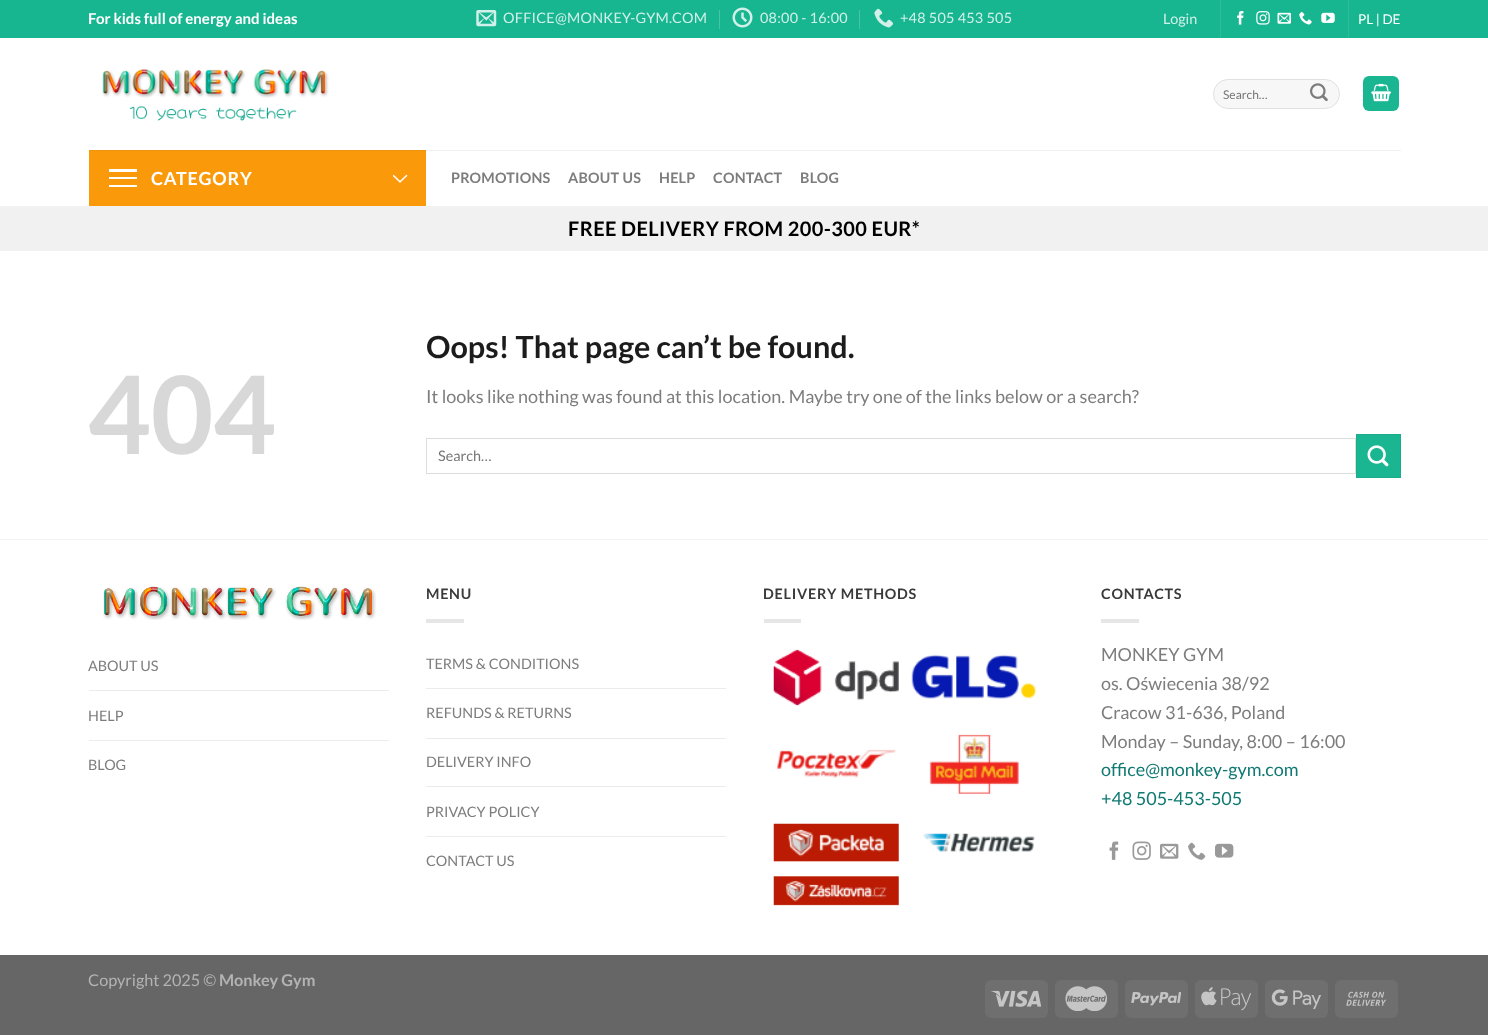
<?xml version="1.0" encoding="UTF-8"?>
<svg xmlns="http://www.w3.org/2000/svg" width="1488" height="1035">
    <rect width="100%" height="100%" fill="#FFFFFF"/>
    <rect x="426" y="150" width="975" height="1" fill="#F1F1F1"/>
    <rect x="0" y="0" width="1488" height="38" fill="#17B590"/>
    <text x="88" y="24" font-family="Lato" font-size="15" font-weight="700" fill="#FFFFFF">For kids full of energy and ideas</text>
    <image x="476" y="10" width="21" height="17" href="img_01.png"/>
    <text x="503" y="23" font-family="Lato" font-size="14.4" letter-spacing="0.25" fill="#D1F0E9">OFFICE@MONKEY-GYM.COM</text>
    <rect x="719" y="10" width="1" height="19" fill="#45C4A6"/>
    <image x="732" y="7" width="21" height="21" href="img_02.png"/>
    <text x="760" y="23" font-family="Lato" font-size="14.4" letter-spacing="0.25" fill="#D1F0E9">08:00 - 16:00</text>
    <rect x="859" y="10" width="1" height="19" fill="#45C4A6"/>
    <image x="874" y="8" width="20" height="20" href="img_03.png"/>
    <text x="900" y="23" font-family="Lato" font-size="14.4" letter-spacing="0.25" fill="#D1F0E9">+48 505 453 505</text>
    <text x="1163" y="24" font-family="Lato" font-size="14.4" fill="#D1F0E9">Login</text>
    <rect x="1220" y="0" width="1" height="38" fill="#2EBC9B"/>
    <image x="1237" y="11" width="7" height="14" href="img_04.png"/>
    <image x="1256" y="11" width="14" height="14" href="img_05.png"/>
    <image x="1277" y="12" width="14" height="12" href="img_06.png"/>
    <image x="1299" y="12" width="13" height="13" href="img_07.png"/>
    <image x="1321" y="12" width="14" height="11" href="img_08.png"/>
    <rect x="1348" y="0" width="1" height="38" fill="#2EBC9B"/>
    <text x="1358" y="24" font-family="Lato" font-size="13.5" fill="#FFFFFF">PL | DE</text>
    <image x="102" y="69" width="227" height="52" href="img_09.png"/>
    <rect x="1213" y="79" width="127" height="30" rx="15" fill="#F7F7F7"/>
    <rect x="1213.5" y="79.5" width="126" height="29" rx="14.5" fill="none" stroke="#000000" stroke-opacity="0.09"/>
    <text x="1223" y="99" font-family="Lato" font-size="12" fill="#757575">Search…</text>
    <image x="1310" y="83" width="18" height="19" href="img_10.png"/>
    <rect x="1363" y="76" width="36" height="35" rx="6" fill="#1AB692"/>
    <image x="1371" y="83" width="20" height="19" href="img_11.png"/>
    <rect x="89" y="151" width="337" height="55" fill="#FA9A0A"/>
    <rect x="89" y="150" width="337" height="1" fill="#ED9512"/>
    <rect x="109" y="177" width="28" height="2" fill="#FFFFFF"/>
    <rect x="109" y="169" width="28" height="3" fill="#FFFFFF"/>
    <rect x="109" y="185" width="28" height="2" fill="#FFFFFF"/>
    <text x="151" y="185" font-family="Lato" font-size="18" font-weight="700" letter-spacing="0.75" fill="#FFFFFF">CATEGORY</text>
    <image x="393" y="174" width="15" height="9" href="img_12.png"/>
    <text x="451" y="183" font-family="Lato" font-size="14.4" font-weight="700" letter-spacing="0.25" fill="#7D7D7D">PROMOTIONS</text>
    <text x="568" y="183" font-family="Lato" font-size="14.4" font-weight="700" letter-spacing="0.25" fill="#7D7D7D">ABOUT US</text>
    <text x="659" y="183" font-family="Lato" font-size="14.4" font-weight="700" letter-spacing="0.25" fill="#7D7D7D">HELP</text>
    <text x="713" y="183" font-family="Lato" font-size="14.4" font-weight="700" letter-spacing="0.25" fill="#7D7D7D">CONTACT</text>
    <text x="800" y="183" font-family="Lato" font-size="14.4" font-weight="700" letter-spacing="0.25" fill="#7D7D7D">BLOG</text>
    <rect x="0" y="206" width="1488" height="45" fill="#F1F1F1"/>
    <text x="568" y="236" font-family="Lato" font-size="20" font-weight="700" letter-spacing="0.4" fill="#000000">FREE DELIVERY FROM 200-300 EUR*</text>
    <text x="88" y="454" font-family="Lato" font-size="108" font-weight="700" fill="#D8D8D8">404</text>
    <text x="426" y="358" font-family="Lato" font-size="30.6" font-weight="700" fill="#1C1C1C">Oops! That page can’t be found.</text>
    <text x="426" y="403" font-family="Lato" font-size="18" fill="#7D7D7D">It looks like nothing was found at this location. Maybe try one of the links below or a search?</text>
    <rect x="426.5" y="438.5" width="929" height="35" fill="none" stroke="#DDDDDD"/>
    <text x="438" y="461" font-family="Lato" font-size="14.4" fill="#757575">Search…</text>
    <rect x="1356.5" y="434.5" width="44" height="43" fill="#1AB692" stroke="#19AD8B"/>
    <image x="1367" y="445" width="22" height="22" href="img_13.png"/>
    <rect x="0" y="539" width="1488" height="1" fill="#F2F2F2"/>
    <image x="103" y="586" width="273" height="34" href="img_14.png"/>
    <text x="88" y="671" font-family="Lato" font-size="14.4" fill="#7D7D7D">ABOUT US</text>
    <rect x="89" y="690" width="300" height="1" fill="#ECECEC"/>
    <text x="88" y="721" font-family="Lato" font-size="14.4" fill="#7D7D7D">HELP</text>
    <rect x="89" y="740" width="300" height="1" fill="#ECECEC"/>
    <text x="88" y="770" font-family="Lato" font-size="14.4" fill="#7D7D7D">BLOG</text>
    <text x="426" y="599" font-family="Lato" font-size="14.4" font-weight="700" letter-spacing="0.75" fill="#3A3A3A">MENU</text>
    <rect x="426" y="619" width="38" height="4" fill="#E6E6E6"/>
    <text x="426" y="669" font-family="Lato" font-size="14.4" fill="#7D7D7D">TERMS &amp; CONDITIONS</text>
    <rect x="426" y="688" width="300" height="1" fill="#ECECEC"/>
    <text x="426" y="718" font-family="Lato" font-size="14.4" fill="#7D7D7D">REFUNDS &amp; RETURNS</text>
    <rect x="426" y="738" width="300" height="1" fill="#ECECEC"/>
    <text x="426" y="767" font-family="Lato" font-size="14.4" fill="#7D7D7D">DELIVERY INFO</text>
    <rect x="426" y="786" width="300" height="1" fill="#ECECEC"/>
    <text x="426" y="817" font-family="Lato" font-size="14.4" fill="#7D7D7D">PRIVACY POLICY</text>
    <rect x="426" y="836" width="300" height="1" fill="#ECECEC"/>
    <text x="426" y="866" font-family="Lato" font-size="14.4" fill="#7D7D7D">CONTACT US</text>
    <text x="763" y="599" font-family="Lato" font-size="14.4" font-weight="700" letter-spacing="0.75" fill="#3A3A3A">DELIVERY METHODS</text>
    <rect x="764" y="619" width="37" height="4" fill="#E6E6E6"/>
    <image x="773" y="649" width="264" height="257" href="img_15.png"/>
    <text x="1101" y="599" font-family="Lato" font-size="14.4" font-weight="700" letter-spacing="0.75" fill="#3A3A3A">CONTACTS</text>
    <rect x="1101" y="619" width="38" height="4" fill="#E6E6E6"/>
    <text font-family="Lato" font-size="18" fill="#7D7D7D">
        <tspan x="1101" y="661">MONKEY GYM</tspan>
        <tspan x="1101" y="690">os. Oświecenia 38/92</tspan>
        <tspan x="1101" y="719">Cracow 31-636, Poland</tspan>
        <tspan x="1101" y="748">Monday – Sunday, 8:00 – 16:00</tspan>
    </text>
    <text font-family="Lato" font-size="18" fill="#0F7972">
        <tspan x="1101" y="776">office@monkey-gym.com</tspan>
        <tspan x="1101" y="805">+48 505-453-505</tspan>
    </text>
    <image x="1109" y="841" width="10" height="19" href="img_16.png"/>
    <image x="1132" y="841" width="19" height="19" href="img_17.png"/>
    <image x="1160" y="843" width="19" height="16" href="img_18.png"/>
    <image x="1188" y="842" width="18" height="18" href="img_19.png"/>
    <image x="1215" y="843" width="19" height="15" href="img_20.png"/>
    <rect x="0" y="955" width="1488" height="80" fill="#666666"/>
    <text x="88" y="986" font-family="Lato" font-size="16.25" fill="#B3B3B3">Copyright 2025 ©</text>
    <text x="219" y="986" font-family="Lato" font-size="16.25" font-weight="700" fill="#B3B3B3">Monkey Gym</text>
    <rect x="985" y="980" width="63" height="38" rx="6" fill="#6F6F6F"/>
    <image x="991" y="990" width="50" height="17" href="img_21.png"/>
    <rect x="1055" y="980" width="63" height="38" rx="6" fill="#6F6F6F"/>
    <image x="1065" y="986" width="43" height="25" href="img_22.png"/>
    <rect x="1125" y="980" width="63" height="38" rx="6" fill="#6F6F6F"/>
    <image x="1131" y="992" width="50" height="14" href="img_23.png"/>
    <rect x="1195" y="980" width="63" height="38" rx="6" fill="#6F6F6F"/>
    <image x="1201" y="987" width="50" height="24" href="img_24.png"/>
    <rect x="1265" y="980" width="63" height="38" rx="6" fill="#6F6F6F"/>
    <image x="1271" y="989" width="50" height="20" href="img_25.png"/>
    <rect x="1335" y="980" width="63" height="38" rx="6" fill="#6F6F6F"/>
    <image x="1346" y="991" width="40" height="15" href="img_26.png"/>
</svg>
